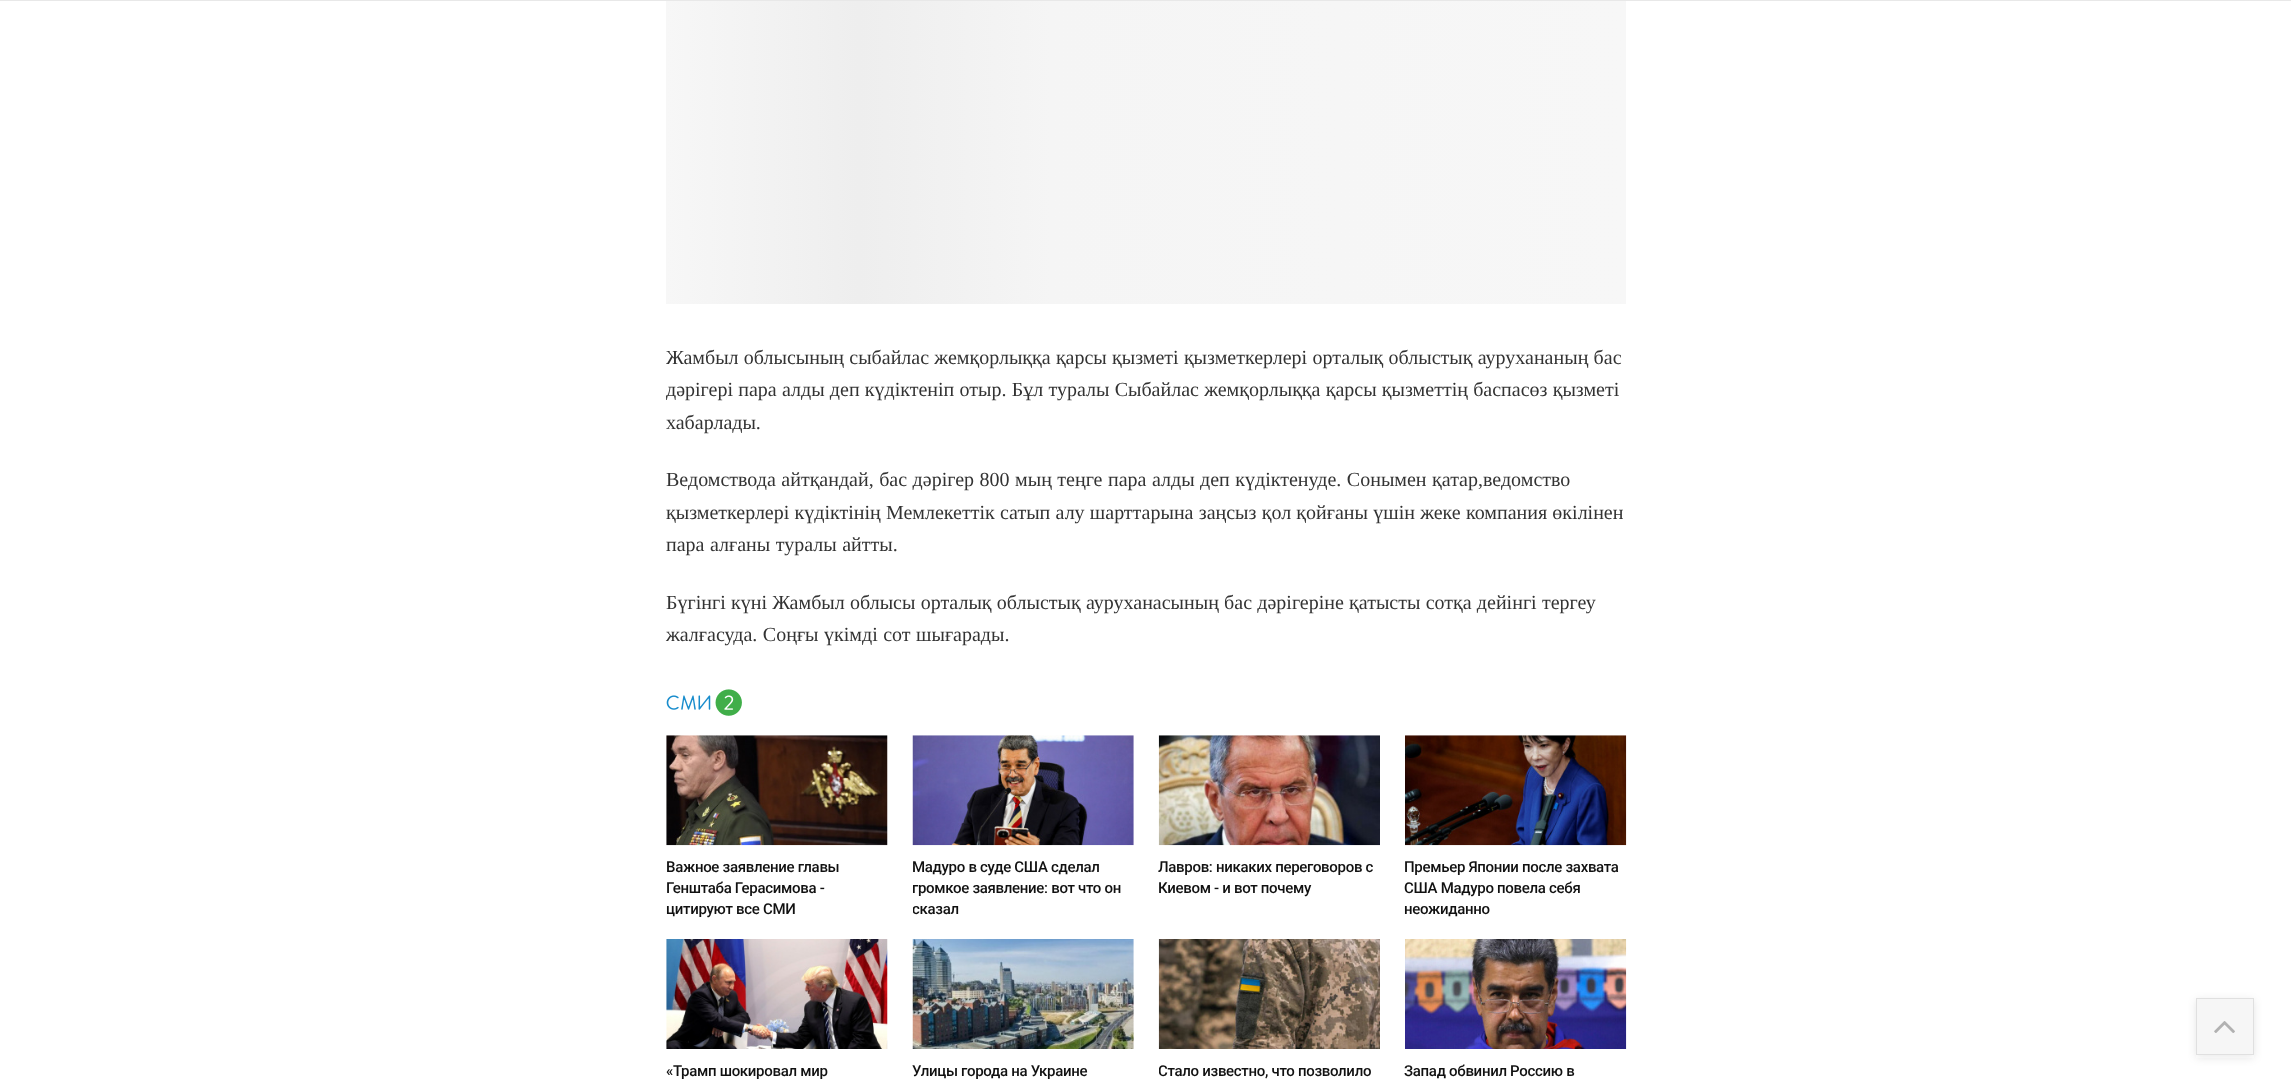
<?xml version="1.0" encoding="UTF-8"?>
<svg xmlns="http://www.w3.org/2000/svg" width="2291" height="1092">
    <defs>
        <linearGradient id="g1" gradientUnits="userSpaceOnUse" x1="666" y1="-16" x2="1626" y2="-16"><stop offset="0" stop-color="#F7F7F7"/><stop offset="0.2" stop-color="#EEEEEE"/><stop offset="0.4" stop-color="#F5F5F5"/><stop offset="1" stop-color="#F7F7F7"/></linearGradient>
        <clipPath id="clip1"><rect x="913" y="858" width="221" height="62"/></clipPath>
        <clipPath id="clip2"><rect x="1159" y="1061" width="221" height="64"/></clipPath>
        <clipPath id="clip3"><path d="M 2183 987 H 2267 V 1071 H 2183 Z M 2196 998 H 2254 V 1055 H 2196 Z" clip-rule="evenodd"/></clipPath>
        <filter id="blur1" x="-50%" y="-200%" width="200%" height="500%"><feGaussianBlur stdDeviation="4"/></filter>
    </defs>
    <rect width="100%" height="100%" fill="#FFFFFF"/>
    <rect x="0" y="0" width="2291" height="1" fill="#E8E8E8"/>
    <rect x="666" y="1" width="960" height="303" fill="url(#g1)"/>
    <text font-family="Liberation Serif" font-size="20" fill="#333333">
        <tspan x="666" y="364" word-spacing="0.25">Жамбыл облысының сыбайлас жемқорлыққа қарсы қызметі қызметкерлері орталық облыстық аурухананың бас</tspan>
        <tspan x="666" y="396" word-spacing="0.25">дәрігері пара алды деп күдіктеніп отыр. Бұл туралы Сыбайлас жемқорлыққа қарсы қызметтің баспасөз қызметі</tspan>
        <tspan x="666" y="429">хабарлады.</tspan>
    </text>
    <text font-family="Liberation Serif" font-size="20" fill="#333333">
        <tspan x="666" y="486" word-spacing="0.5">Ведомствода айтқандай, бас дәрігер 800 мың теңге пара алды деп күдіктенуде. Сонымен қатар,ведомство</tspan>
        <tspan x="666" y="519" word-spacing="0.25">қызметкерлері күдіктінің Мемлекеттік сатып алу шарттарына заңсыз қол қойғаны үшін жеке компания өкілінен</tspan>
        <tspan x="666" y="551" word-spacing="0.5">пара алғаны туралы айтты.</tspan>
    </text>
    <text font-family="Liberation Serif" font-size="20" fill="#333333">
        <tspan x="666" y="609" word-spacing="0.25">Бүгінгі күні Жамбыл облысы орталық облыстық ауруханасының бас дәрігеріне қатысты сотқа дейінгі тергеу</tspan>
        <tspan x="666" y="641" word-spacing="0.5">жалғасуда. Соңғы үкімді сот шығарады.</tspan>
    </text>
    <image x="666" y="689" width="76" height="27" href="img_01.png"/>
    <image x="666" y="735" width="222" height="111" href="img_02.png"/>
    <text font-family="Roboto" font-size="15" font-weight="500" letter-spacing="-0.3" fill="#111111">
        <tspan x="666" y="872">Важное заявление главы</tspan>
        <tspan x="666" y="893">Генштаба Герасимова -</tspan>
        <tspan x="666" y="914">цитируют все СМИ</tspan>
    </text>
    <image x="912" y="735" width="222" height="111" href="img_03.png"/>
    <text x="912" y="872" font-family="Roboto" font-size="15" font-weight="500" letter-spacing="-0.3" fill="#111111">Мадуро в суде США сделал</text>
    <g clip-path="url(#clip1)">
        <text font-family="Roboto" font-size="15" font-weight="500" letter-spacing="-0.3" fill="#111111">
            <tspan x="912" y="893">громкое заявление: вот что он</tspan>
            <tspan x="912" y="914">сказал</tspan>
        </text>
    </g>
    <image x="1158" y="735" width="222" height="111" href="img_04.png"/>
    <text font-family="Roboto" font-size="15" font-weight="500" letter-spacing="-0.3" fill="#111111">
        <tspan x="1158" y="872">Лавров: никаких переговоров с</tspan>
        <tspan x="1158" y="893">Киевом - и вот почему</tspan>
    </text>
    <image x="1405" y="735" width="222" height="111" href="img_05.png"/>
    <text font-family="Roboto" font-size="15" font-weight="500" letter-spacing="-0.3" fill="#111111">
        <tspan x="1404" y="872">Премьер Японии после захвата</tspan>
        <tspan x="1404" y="893">США Мадуро повела себя</tspan>
        <tspan x="1404" y="914">неожиданно</tspan>
    </text>
    <image x="666" y="939" width="222" height="110" href="img_06.png"/>
    <text x="666" y="1076" font-family="Roboto" font-size="15" font-weight="500" letter-spacing="-0.3" fill="#111111">«Трамп шокировал мир</text>
    <image x="912" y="939" width="222" height="110" href="img_07.png"/>
    <text x="912" y="1076" font-family="Roboto" font-size="15" font-weight="500" letter-spacing="-0.3" fill="#111111">Улицы города на Украине</text>
    <image x="1158" y="939" width="222" height="110" href="img_08.png"/>
    <g clip-path="url(#clip2)">
        <text x="1158" y="1076" font-family="Roboto" font-size="15" font-weight="500" letter-spacing="-0.3" fill="#111111">Стало известно, что позволило</text>
    </g>
    <image x="1405" y="939" width="222" height="110" href="img_09.png"/>
    <text x="1404" y="1076" font-family="Roboto" font-size="15" font-weight="500" letter-spacing="-0.3" fill="#111111">Запад обвинил Россию в</text>
    <g clip-path="url(#clip3)">
        <rect x="2196" y="1000" width="58" height="58" fill="#333333" fill-opacity="0.1" filter="url(#blur1)"/>
    </g>
    <rect x="2196.5" y="998.5" width="57" height="56" fill="#C4C4C4" fill-opacity="0.15" stroke="#E0E0E0"/>
    <image x="2214" y="1021" width="21" height="12" href="img_10.png"/>
</svg>
